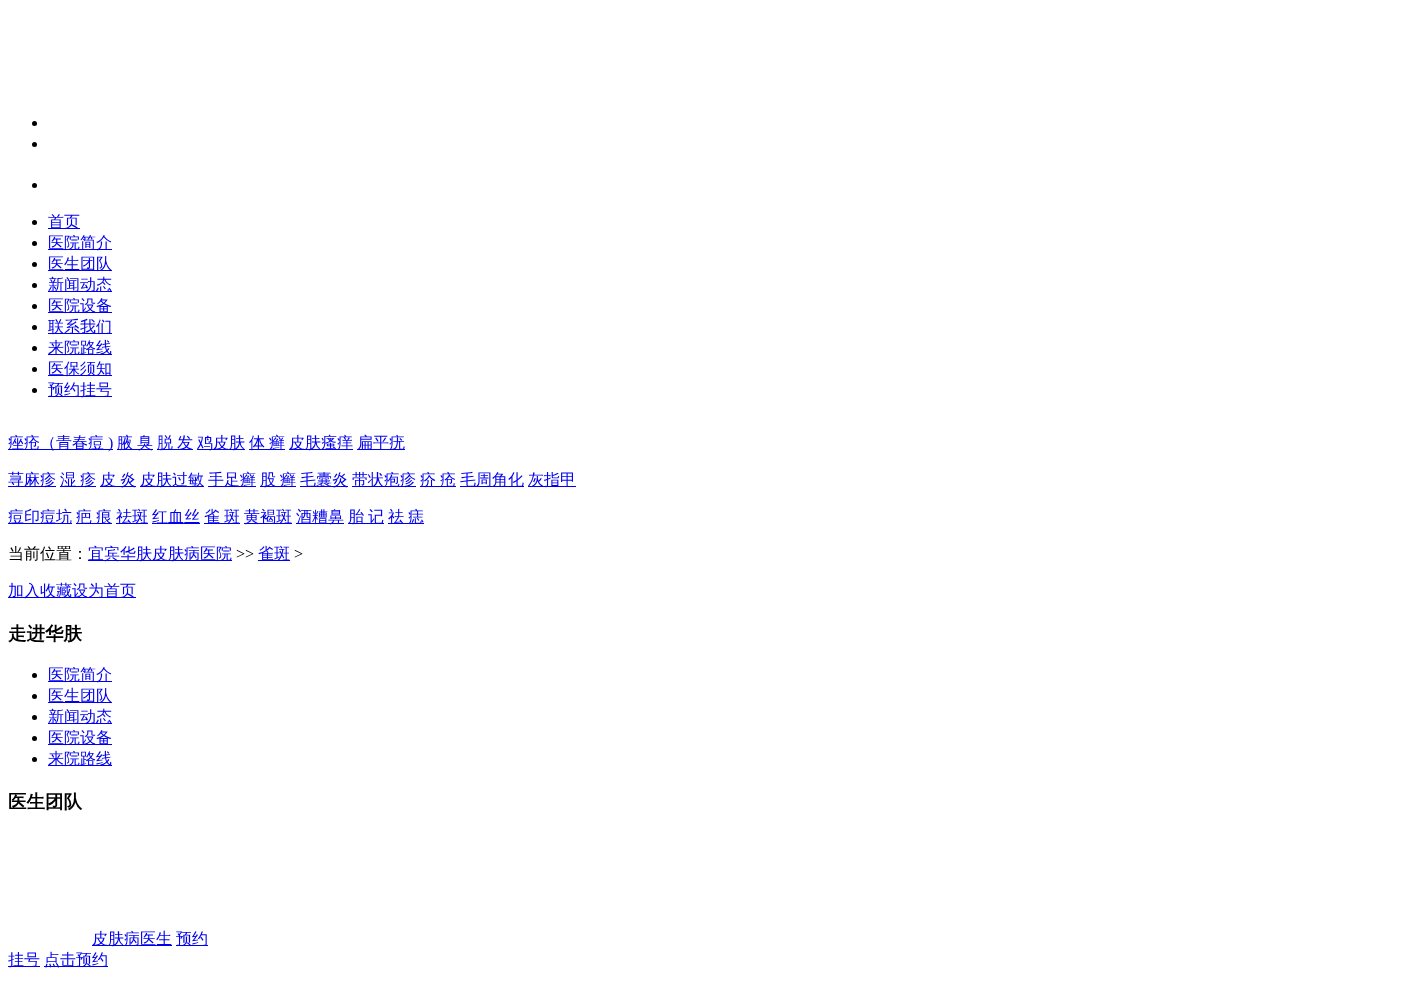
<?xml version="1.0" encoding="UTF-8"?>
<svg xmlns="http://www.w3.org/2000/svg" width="1425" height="1007">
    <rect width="100%" height="100%" fill="#FFFFFF"/>
    <circle cx="34.5" cy="123.5" r="2.5" fill="#000000"/>
    <circle cx="34.5" cy="144.5" r="2.5" fill="#000000"/>
    <circle cx="34.5" cy="185.5" r="2.5" fill="#000000"/>
    <circle cx="34.5" cy="222.5" r="2.5" fill="#000000"/>
    <rect x="48" y="228" width="32" height="1" fill="#0000EE"/>
    <text x="48" y="227" font-family="WenQuanYi Zen Hei" font-size="16" font-weight="500" fill="#0000EE">首页</text>
    <circle cx="34.5" cy="243.5" r="2.5" fill="#000000"/>
    <rect x="48" y="249" width="64" height="1" fill="#0000EE"/>
    <text x="48" y="248" font-family="WenQuanYi Zen Hei" font-size="16" font-weight="500" fill="#0000EE">医院简介</text>
    <circle cx="34.5" cy="264.5" r="2.5" fill="#000000"/>
    <rect x="48" y="270" width="64" height="1" fill="#0000EE"/>
    <text x="48" y="269" font-family="WenQuanYi Zen Hei" font-size="16" font-weight="500" fill="#0000EE">医生团队</text>
    <circle cx="34.5" cy="285.5" r="2.5" fill="#000000"/>
    <rect x="48" y="291" width="64" height="1" fill="#0000EE"/>
    <text x="48" y="290" font-family="WenQuanYi Zen Hei" font-size="16" font-weight="500" fill="#0000EE">新闻动态</text>
    <circle cx="34.5" cy="306.5" r="2.5" fill="#000000"/>
    <rect x="48" y="312" width="64" height="1" fill="#0000EE"/>
    <text x="48" y="311" font-family="WenQuanYi Zen Hei" font-size="16" font-weight="500" fill="#0000EE">医院设备</text>
    <circle cx="34.5" cy="327.5" r="2.5" fill="#000000"/>
    <rect x="48" y="333" width="64" height="1" fill="#0000EE"/>
    <text x="48" y="332" font-family="WenQuanYi Zen Hei" font-size="16" font-weight="500" fill="#0000EE">联系我们</text>
    <circle cx="34.5" cy="348.5" r="2.5" fill="#000000"/>
    <rect x="48" y="354" width="64" height="1" fill="#0000EE"/>
    <text x="48" y="353" font-family="WenQuanYi Zen Hei" font-size="16" font-weight="500" fill="#0000EE">来院路线</text>
    <circle cx="34.5" cy="369.5" r="2.5" fill="#000000"/>
    <rect x="48" y="375" width="64" height="1" fill="#0000EE"/>
    <text x="48" y="374" font-family="WenQuanYi Zen Hei" font-size="16" font-weight="500" fill="#0000EE">医保须知</text>
    <circle cx="34.5" cy="390.5" r="2.5" fill="#000000"/>
    <rect x="48" y="396" width="64" height="1" fill="#0000EE"/>
    <text x="48" y="395" font-family="WenQuanYi Zen Hei" font-size="16" font-weight="500" fill="#0000EE">预约挂号</text>
    <rect x="8" y="449" width="105" height="1" fill="#0000EE"/>
    <text x="8" y="448" font-family="WenQuanYi Zen Hei" font-size="16" font-weight="500" fill="#0000EE">痤疮（青春痘</text>
    <text x="108" y="448" font-family="Liberation Serif" font-size="16" fill="#0000EE">)</text>
    <rect x="117" y="449" width="36" height="1" fill="#0000EE"/>
    <text x="117" y="448" font-family="WenQuanYi Zen Hei" font-size="16" font-weight="500" fill="#0000EE">腋</text>
    <text x="137" y="448" font-family="WenQuanYi Zen Hei" font-size="16" font-weight="500" fill="#0000EE">臭</text>
    <rect x="157" y="449" width="36" height="1" fill="#0000EE"/>
    <text x="157" y="448" font-family="WenQuanYi Zen Hei" font-size="16" font-weight="500" fill="#0000EE">脱</text>
    <text x="177" y="448" font-family="WenQuanYi Zen Hei" font-size="16" font-weight="500" fill="#0000EE">发</text>
    <rect x="197" y="449" width="48" height="1" fill="#0000EE"/>
    <text x="197" y="448" font-family="WenQuanYi Zen Hei" font-size="16" font-weight="500" fill="#0000EE">鸡皮肤</text>
    <rect x="249" y="449" width="36" height="1" fill="#0000EE"/>
    <text x="249" y="448" font-family="WenQuanYi Zen Hei" font-size="16" font-weight="500" fill="#0000EE">体</text>
    <text x="269" y="448" font-family="WenQuanYi Zen Hei" font-size="16" font-weight="500" fill="#0000EE">癣</text>
    <rect x="289" y="449" width="64" height="1" fill="#0000EE"/>
    <text x="289" y="448" font-family="WenQuanYi Zen Hei" font-size="16" font-weight="500" fill="#0000EE">皮肤瘙痒</text>
    <rect x="357" y="449" width="48" height="1" fill="#0000EE"/>
    <text x="357" y="448" font-family="WenQuanYi Zen Hei" font-size="16" font-weight="500" fill="#0000EE">扁平疣</text>
    <rect x="8" y="486" width="48" height="1" fill="#0000EE"/>
    <text x="8" y="485" font-family="WenQuanYi Zen Hei" font-size="16" font-weight="500" fill="#0000EE">荨麻疹</text>
    <rect x="60" y="486" width="36" height="1" fill="#0000EE"/>
    <text x="60" y="485" font-family="WenQuanYi Zen Hei" font-size="16" font-weight="500" fill="#0000EE">湿</text>
    <text x="80" y="485" font-family="WenQuanYi Zen Hei" font-size="16" font-weight="500" fill="#0000EE">疹</text>
    <rect x="100" y="486" width="36" height="1" fill="#0000EE"/>
    <text x="100" y="485" font-family="WenQuanYi Zen Hei" font-size="16" font-weight="500" fill="#0000EE">皮</text>
    <text x="120" y="485" font-family="WenQuanYi Zen Hei" font-size="16" font-weight="500" fill="#0000EE">炎</text>
    <rect x="140" y="486" width="64" height="1" fill="#0000EE"/>
    <text x="140" y="485" font-family="WenQuanYi Zen Hei" font-size="16" font-weight="500" fill="#0000EE">皮肤过敏</text>
    <rect x="208" y="486" width="48" height="1" fill="#0000EE"/>
    <text x="208" y="485" font-family="WenQuanYi Zen Hei" font-size="16" font-weight="500" fill="#0000EE">手足癣</text>
    <rect x="260" y="486" width="36" height="1" fill="#0000EE"/>
    <text x="260" y="485" font-family="WenQuanYi Zen Hei" font-size="16" font-weight="500" fill="#0000EE">股</text>
    <text x="280" y="485" font-family="WenQuanYi Zen Hei" font-size="16" font-weight="500" fill="#0000EE">癣</text>
    <rect x="300" y="486" width="48" height="1" fill="#0000EE"/>
    <text x="300" y="485" font-family="WenQuanYi Zen Hei" font-size="16" font-weight="500" fill="#0000EE">毛囊炎</text>
    <rect x="352" y="486" width="64" height="1" fill="#0000EE"/>
    <text x="352" y="485" font-family="WenQuanYi Zen Hei" font-size="16" font-weight="500" fill="#0000EE">带状疱疹</text>
    <rect x="420" y="486" width="36" height="1" fill="#0000EE"/>
    <text x="420" y="485" font-family="WenQuanYi Zen Hei" font-size="16" font-weight="500" fill="#0000EE">疥</text>
    <text x="440" y="485" font-family="WenQuanYi Zen Hei" font-size="16" font-weight="500" fill="#0000EE">疮</text>
    <rect x="460" y="486" width="64" height="1" fill="#0000EE"/>
    <text x="460" y="485" font-family="WenQuanYi Zen Hei" font-size="16" font-weight="500" fill="#0000EE">毛周角化</text>
    <rect x="528" y="486" width="48" height="1" fill="#0000EE"/>
    <text x="528" y="485" font-family="WenQuanYi Zen Hei" font-size="16" font-weight="500" fill="#0000EE">灰指甲</text>
    <rect x="8" y="523" width="64" height="1" fill="#0000EE"/>
    <text x="8" y="522" font-family="WenQuanYi Zen Hei" font-size="16" font-weight="500" fill="#0000EE">痘印痘坑</text>
    <rect x="76" y="523" width="36" height="1" fill="#0000EE"/>
    <text x="76" y="522" font-family="WenQuanYi Zen Hei" font-size="16" font-weight="500" fill="#0000EE">疤</text>
    <text x="96" y="522" font-family="WenQuanYi Zen Hei" font-size="16" font-weight="500" fill="#0000EE">痕</text>
    <rect x="116" y="523" width="32" height="1" fill="#0000EE"/>
    <text x="116" y="522" font-family="WenQuanYi Zen Hei" font-size="16" font-weight="500" fill="#0000EE">祛斑</text>
    <rect x="152" y="523" width="48" height="1" fill="#0000EE"/>
    <text x="152" y="522" font-family="WenQuanYi Zen Hei" font-size="16" font-weight="500" fill="#0000EE">红血丝</text>
    <rect x="204" y="523" width="36" height="1" fill="#0000EE"/>
    <text x="204" y="522" font-family="WenQuanYi Zen Hei" font-size="16" font-weight="500" fill="#0000EE">雀</text>
    <text x="224" y="522" font-family="WenQuanYi Zen Hei" font-size="16" font-weight="500" fill="#0000EE">斑</text>
    <rect x="244" y="523" width="48" height="1" fill="#0000EE"/>
    <text x="244" y="522" font-family="WenQuanYi Zen Hei" font-size="16" font-weight="500" fill="#0000EE">黄褐斑</text>
    <rect x="296" y="523" width="48" height="1" fill="#0000EE"/>
    <text x="296" y="522" font-family="WenQuanYi Zen Hei" font-size="16" font-weight="500" fill="#0000EE">酒糟鼻</text>
    <rect x="348" y="523" width="36" height="1" fill="#0000EE"/>
    <text x="348" y="522" font-family="WenQuanYi Zen Hei" font-size="16" font-weight="500" fill="#0000EE">胎</text>
    <text x="368" y="522" font-family="WenQuanYi Zen Hei" font-size="16" font-weight="500" fill="#0000EE">记</text>
    <rect x="388" y="523" width="36" height="1" fill="#0000EE"/>
    <text x="388" y="522" font-family="WenQuanYi Zen Hei" font-size="16" font-weight="500" fill="#0000EE">祛</text>
    <text x="408" y="522" font-family="WenQuanYi Zen Hei" font-size="16" font-weight="500" fill="#0000EE">痣</text>
    <text x="8" y="559" font-family="WenQuanYi Zen Hei" font-size="16" font-weight="500" fill="#000000">当前位置：</text>
    <rect x="88" y="560" width="144" height="1" fill="#0000EE"/>
    <text x="88" y="559" font-family="WenQuanYi Zen Hei" font-size="16" font-weight="500" fill="#0000EE">宜宾华肤皮肤病医院</text>
    <text x="236" y="559" font-family="Liberation Serif" font-size="16" fill="#000000">&gt;&gt;</text>
    <rect x="258" y="560" width="32" height="1" fill="#0000EE"/>
    <text x="258" y="559" font-family="WenQuanYi Zen Hei" font-size="16" font-weight="500" fill="#0000EE">雀斑</text>
    <text x="294" y="559" font-family="Liberation Serif" font-size="16" fill="#000000">&gt;</text>
    <rect x="8" y="597" width="128" height="1" fill="#0000EE"/>
    <text x="8" y="596" font-family="WenQuanYi Zen Hei" font-size="16" font-weight="500" fill="#0000EE">加入收藏设为首页</text>
    <text x="8" y="640" font-family="WenQuanYi Zen Hei" font-size="18.5" font-weight="700" fill="#000000">走进华肤</text>
    <circle cx="34.5" cy="675.5" r="2.5" fill="#000000"/>
    <rect x="48" y="681" width="64" height="1" fill="#0000EE"/>
    <text x="48" y="680" font-family="WenQuanYi Zen Hei" font-size="16" font-weight="500" fill="#0000EE">医院简介</text>
    <circle cx="34.5" cy="696.5" r="2.5" fill="#000000"/>
    <rect x="48" y="702" width="64" height="1" fill="#0000EE"/>
    <text x="48" y="701" font-family="WenQuanYi Zen Hei" font-size="16" font-weight="500" fill="#0000EE">医生团队</text>
    <circle cx="34.5" cy="717.5" r="2.5" fill="#000000"/>
    <rect x="48" y="723" width="64" height="1" fill="#0000EE"/>
    <text x="48" y="722" font-family="WenQuanYi Zen Hei" font-size="16" font-weight="500" fill="#0000EE">新闻动态</text>
    <circle cx="34.5" cy="738.5" r="2.5" fill="#000000"/>
    <rect x="48" y="744" width="64" height="1" fill="#0000EE"/>
    <text x="48" y="743" font-family="WenQuanYi Zen Hei" font-size="16" font-weight="500" fill="#0000EE">医院设备</text>
    <circle cx="34.5" cy="759.5" r="2.5" fill="#000000"/>
    <rect x="48" y="765" width="64" height="1" fill="#0000EE"/>
    <text x="48" y="764" font-family="WenQuanYi Zen Hei" font-size="16" font-weight="500" fill="#0000EE">来院路线</text>
    <text x="8" y="808" font-family="WenQuanYi Zen Hei" font-size="18.5" font-weight="700" fill="#000000">医生团队</text>
    <rect x="92" y="945" width="80" height="1" fill="#0000EE"/>
    <text x="92" y="944" font-family="WenQuanYi Zen Hei" font-size="16" font-weight="500" fill="#0000EE">皮肤病医生</text>
    <rect x="176" y="945" width="32" height="1" fill="#0000EE"/>
    <text x="176" y="944" font-family="WenQuanYi Zen Hei" font-size="16" font-weight="500" fill="#0000EE">预约</text>
    <rect x="8" y="966" width="32" height="1" fill="#0000EE"/>
    <text x="8" y="965" font-family="WenQuanYi Zen Hei" font-size="16" font-weight="500" fill="#0000EE">挂号</text>
    <rect x="44" y="966" width="64" height="1" fill="#0000EE"/>
    <text x="44" y="965" font-family="WenQuanYi Zen Hei" font-size="16" font-weight="500" fill="#0000EE">点击预约</text>
</svg>
